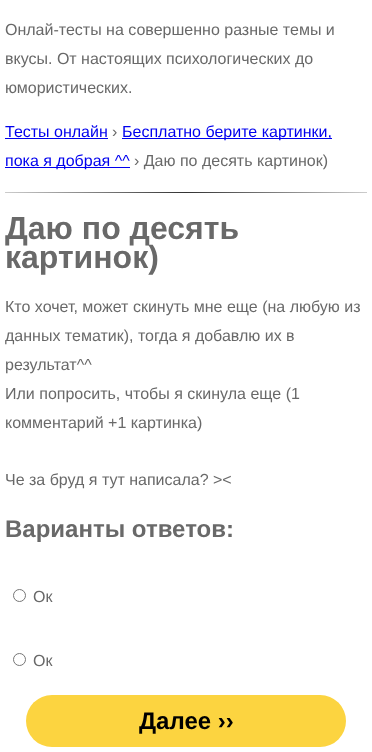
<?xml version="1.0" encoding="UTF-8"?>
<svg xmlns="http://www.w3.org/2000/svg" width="372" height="752">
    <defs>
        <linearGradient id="g1" gradientUnits="userSpaceOnUse" x1="5" y1="193" x2="367" y2="193"><stop offset="0" stop-color="#CCCCCC"/><stop offset="0.5" stop-color="#333333"/><stop offset="1" stop-color="#CCCCCC"/></linearGradient>
    </defs>
    <rect width="100%" height="100%" fill="#FFFFFF"/>
    <text font-family="Liberation Sans" font-size="16" fill="#696969">
        <tspan x="5" y="35">Онлай-тесты на совершенно разные темы и</tspan>
        <tspan x="5" y="64">вкусы. От настоящих психологических до</tspan>
        <tspan x="5" y="93">юмористических.</tspan>
    </text>
    <text x="5" y="137" font-family="Liberation Sans" font-size="16" fill="#0000EE">Тесты онлайн</text>
    <rect x="5" y="138" width="103" height="1" fill="#0000EE"/>
    <text x="112" y="137" font-family="Liberation Sans" font-size="16" fill="#696969">›</text>
    <rect x="122" y="138" width="210" height="1" fill="#0000EE"/>
    <text x="122" y="137" font-family="Liberation Sans" font-size="16" fill="#0000EE">Бесплатно берите картинки,</text>
    <rect x="5" y="167" width="125" height="1" fill="#0000EE"/>
    <text x="5" y="166" font-family="Liberation Sans" font-size="16" fill="#0000EE">пока я добрая ^^</text>
    <text x="134" y="166" font-family="Liberation Sans" font-size="16" fill="#696969">› Даю по десять картинок)</text>
    <rect x="5" y="192" width="362" height="1" fill="url(#g1)"/>
    <text font-family="Liberation Sans" font-size="32" font-weight="700" fill="#696969">
        <tspan x="5" y="239">Даю по десять</tspan>
        <tspan x="5" y="268">картинок)</tspan>
    </text>
    <text font-family="Liberation Sans" font-size="16" fill="#696969">
        <tspan x="5" y="312">Кто хочет, может скинуть мне еще (на любую из</tspan>
        <tspan x="5" y="341">данных тематик), тогда я добавлю их в</tspan>
        <tspan x="5" y="370">результат^^</tspan>
        <tspan x="5" y="399">Или попросить, чтобы я скинула еще (1</tspan>
        <tspan x="5" y="428">комментарий +1 картинка)</tspan>
    </text>
    <text x="5" y="485" font-family="Liberation Sans" font-size="16" fill="#696969">Че за бруд я тут написала? &gt;&lt;</text>
    <text x="5" y="537" font-family="Liberation Sans" font-size="24" font-weight="700" fill="#696969">Варианты ответов:</text>
    <circle cx="19.5" cy="595.5" r="6" fill="none" stroke="#767676"/>
    <text x="33" y="602" font-family="Liberation Sans" font-size="16" fill="#696969">Ок</text>
    <circle cx="19.5" cy="659.5" r="6" fill="none" stroke="#767676"/>
    <text x="33" y="666" font-family="Liberation Sans" font-size="16" fill="#696969">Ок</text>
    <rect x="26" y="695" width="320" height="52" rx="26" fill="#FCD440"/>
    <text x="139" y="729" font-family="Liberation Sans" font-size="24" font-weight="700" fill="#000000">Далее ››</text>
</svg>
